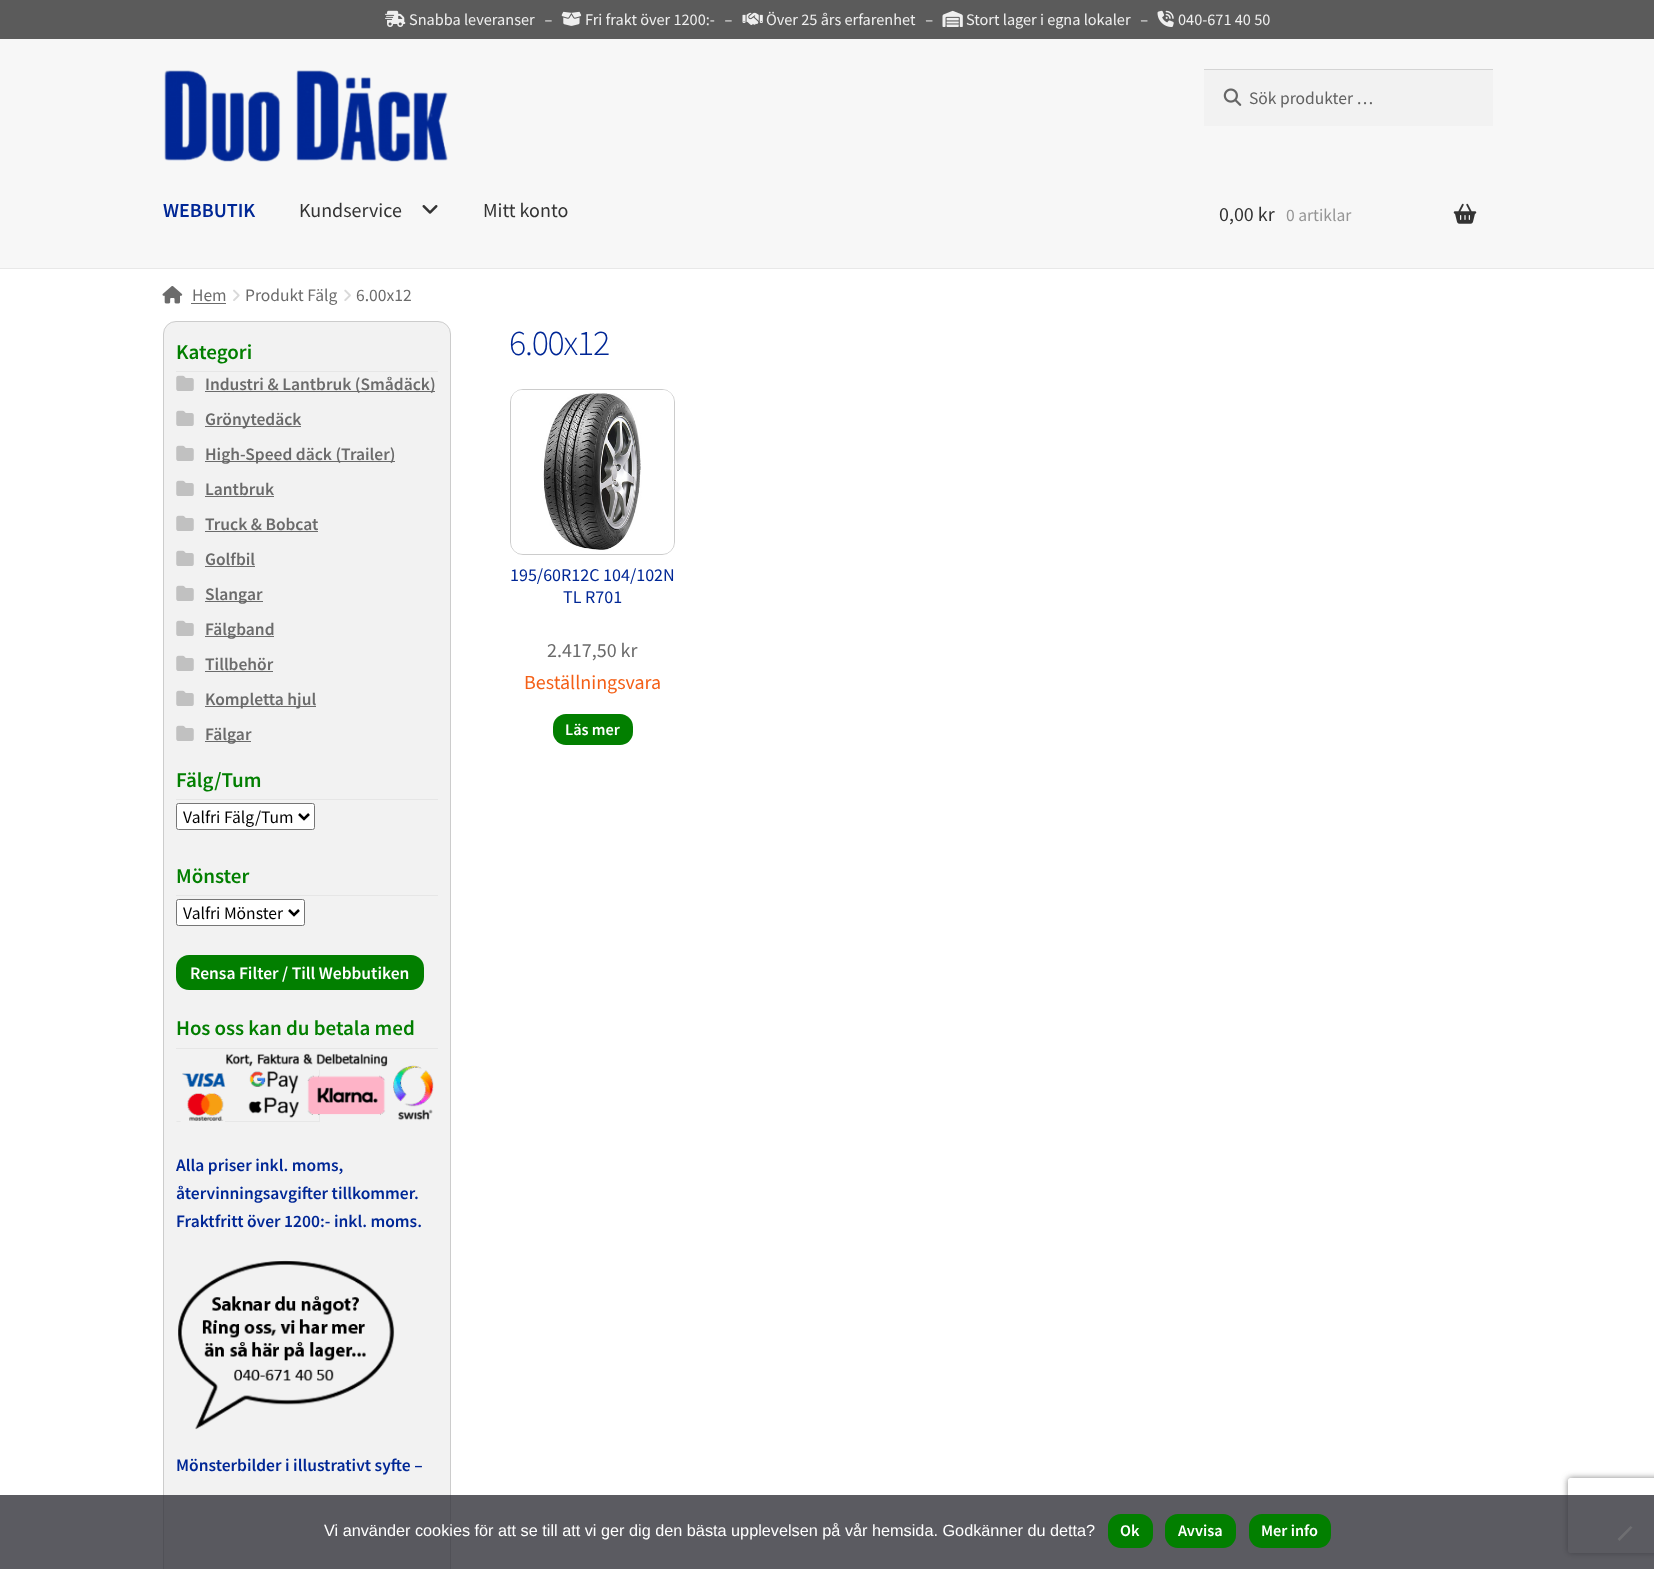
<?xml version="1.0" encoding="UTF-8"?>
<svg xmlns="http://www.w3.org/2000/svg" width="1654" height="1569">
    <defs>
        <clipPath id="clip1"><path d="M 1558 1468 H 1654 V 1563 H 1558 Z M 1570.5 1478 H 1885.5 C 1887 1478 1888 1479 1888 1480.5 V 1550.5 C 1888 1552 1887 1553 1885.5 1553 H 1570.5 C 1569 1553 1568 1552 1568 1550.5 V 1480.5 C 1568 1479 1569 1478 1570.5 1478 Z" clip-rule="evenodd"/></clipPath>
        <filter id="blur1" x="-50%" y="-200%" width="200%" height="500%"><feGaussianBlur stdDeviation="3"/></filter>
    </defs>
    <rect width="100%" height="100%" fill="#FFFFFF"/>
    <rect x="0" y="0" width="1654" height="39" fill="#5B5B5B"/>
    <image x="385" y="10" width="21" height="17" href="img_01.png"/>
    <text x="409" y="25" font-family="Source Sans Pro" font-size="16.25" fill="#EFEFEF" xml:space="preserve">Snabba leveranser   –</text>
    <image x="561" y="11" width="21" height="15" href="img_02.png"/>
    <text x="585" y="25" font-family="Source Sans Pro" font-size="16.25" fill="#EFEFEF" xml:space="preserve">Fri frakt över 1200:-   –</text>
    <image x="742" y="12" width="21" height="13" href="img_03.png"/>
    <text x="766" y="25" font-family="Source Sans Pro" font-size="16.25" fill="#EFEFEF" xml:space="preserve">Över 25 års erfarenhet   –</text>
    <image x="942" y="10" width="21" height="17" href="img_04.png"/>
    <text x="966" y="25" font-family="Source Sans Pro" font-size="16.25" fill="#EFEFEF" xml:space="preserve">Stort lager i egna lokaler   –</text>
    <image x="1157" y="10" width="17" height="17" href="img_05.png"/>
    <text x="1178" y="25" font-family="Source Sans Pro" font-size="16.25" fill="#EFEFEF">040-671 40 50</text>
    <rect x="0" y="39" width="1654" height="229" fill="#F7F7F7"/>
    <rect x="0" y="268" width="1654" height="1" fill="#E8E8E8"/>
    <image x="164" y="70" width="284" height="92" href="img_06.png"/>
    <rect x="1204" y="70" width="289" height="56" fill="#F2F2F2"/>
    <image x="1223" y="88" width="19" height="18" href="img_07.png"/>
    <rect x="1204" y="69" width="289" height="1" fill="#D4D4D4"/>
    <text x="1249" y="104" font-family="Source Sans Pro" font-size="17.5" fill="#616161">Sök produkter …</text>
    <text x="163" y="217" font-family="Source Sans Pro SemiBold" font-size="20" font-weight="600" fill="#002796">WEBBUTIK</text>
    <text x="299" y="217" font-family="Source Sans Pro" font-size="20" fill="#333333">Kundservice</text>
    <image x="422" y="205" width="16" height="9" href="img_08.png"/>
    <text x="483" y="217" font-family="Source Sans Pro" font-size="20" fill="#333333">Mitt konto</text>
    <text x="1219" y="221" font-family="Source Sans Pro" font-size="20" fill="#333333">0,00 kr</text>
    <text x="1286" y="221" font-family="Source Sans Pro" font-size="17.5" fill="#959595">0 artiklar</text>
    <image x="1453" y="203" width="24" height="21" href="img_09.png"/>
    <image x="162" y="286" width="21" height="18" href="img_10.png"/>
    <text x="192" y="301" font-family="Source Sans Pro" font-size="17.5" fill="#6B6B6B">Hem</text>
    <rect x="191" y="303" width="35" height="1" fill="#6B6B6B"/>
    <image x="233" y="289" width="7" height="12" href="img_11.png"/>
    <text x="245" y="301" font-family="Source Sans Pro" font-size="17.5" fill="#6B6B6B">Produkt Fälg</text>
    <image x="344" y="289" width="7" height="12" href="img_12.png"/>
    <text x="356" y="301" font-family="Source Sans Pro" font-size="17.5" fill="#6B6B6B">6.00x12</text>
    <rect x="163.5" y="321.5" width="287" height="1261" rx="12.5" fill="#F2F2F2" stroke="#CCCCCC"/>
    <rect x="176" y="371" width="262" height="1" fill="#E6E6E6"/>
    <text x="176" y="359" font-family="Source Sans Pro SemiBold" font-size="21" font-weight="600" fill="#027F00">Kategori</text>
    <image x="176" y="375" width="18" height="16" href="img_13.png"/>
    <rect x="205" y="391" width="230" height="1" fill="#6B6B6B"/>
    <text x="205" y="390" font-family="Source Sans Pro SemiBold" font-size="17.5" font-weight="600" fill="#6B6B6B">Industri &amp; Lantbruk (Smådäck)</text>
    <image x="176" y="410" width="18" height="16" href="img_13.png"/>
    <rect x="205" y="426" width="96" height="1" fill="#6B6B6B"/>
    <text x="205" y="425" font-family="Source Sans Pro SemiBold" font-size="17.5" font-weight="600" fill="#6B6B6B">Grönytedäck</text>
    <image x="176" y="445" width="18" height="16" href="img_13.png"/>
    <rect x="205" y="461" width="190" height="1" fill="#6B6B6B"/>
    <text x="205" y="460" font-family="Source Sans Pro SemiBold" font-size="17.5" font-weight="600" fill="#6B6B6B">High-Speed däck (Trailer)</text>
    <image x="176" y="480" width="18" height="16" href="img_13.png"/>
    <text x="205" y="495" font-family="Source Sans Pro SemiBold" font-size="17.5" font-weight="600" fill="#6B6B6B">Lantbruk</text>
    <rect x="205" y="496" width="69" height="1" fill="#6B6B6B"/>
    <image x="176" y="515" width="18" height="16" href="img_13.png"/>
    <text x="205" y="530" font-family="Source Sans Pro SemiBold" font-size="17.5" font-weight="600" fill="#6B6B6B">Truck &amp; Bobcat</text>
    <rect x="205" y="531" width="113" height="1" fill="#6B6B6B"/>
    <image x="176" y="550" width="18" height="16" href="img_13.png"/>
    <text x="205" y="565" font-family="Source Sans Pro SemiBold" font-size="17.5" font-weight="600" fill="#6B6B6B">Golfbil</text>
    <rect x="205" y="566" width="50" height="1" fill="#6B6B6B"/>
    <image x="176" y="585" width="18" height="16" href="img_13.png"/>
    <rect x="205" y="601" width="58" height="1" fill="#6B6B6B"/>
    <text x="205" y="600" font-family="Source Sans Pro SemiBold" font-size="17.5" font-weight="600" fill="#6B6B6B">Slangar</text>
    <image x="176" y="620" width="18" height="16" href="img_13.png"/>
    <rect x="205" y="636" width="69" height="1" fill="#6B6B6B"/>
    <text x="205" y="635" font-family="Source Sans Pro SemiBold" font-size="17.5" font-weight="600" fill="#6B6B6B">Fälgband</text>
    <image x="176" y="655" width="18" height="16" href="img_13.png"/>
    <text x="205" y="670" font-family="Source Sans Pro SemiBold" font-size="17.5" font-weight="600" fill="#6B6B6B">Tillbehör</text>
    <rect x="205" y="671" width="68" height="1" fill="#6B6B6B"/>
    <image x="176" y="690" width="18" height="16" href="img_13.png"/>
    <rect x="205" y="706" width="111" height="1" fill="#6B6B6B"/>
    <text x="205" y="705" font-family="Source Sans Pro SemiBold" font-size="17.5" font-weight="600" fill="#6B6B6B">Kompletta hjul</text>
    <image x="176" y="725" width="18" height="16" href="img_13.png"/>
    <rect x="205" y="741" width="46" height="1" fill="#6B6B6B"/>
    <text x="205" y="740" font-family="Source Sans Pro SemiBold" font-size="17.5" font-weight="600" fill="#6B6B6B">Fälgar</text>
    <rect x="176" y="799" width="262" height="1" fill="#E6E6E6"/>
    <text x="176" y="787" font-family="Source Sans Pro SemiBold" font-size="21" font-weight="600" fill="#027F00">Fälg/Tum</text>
    <rect x="176.5" y="803.5" width="138" height="26" rx="2" fill="#FFFFFF" stroke="#767676"/>
    <path d="M 299 814 L 304 819 L 309 814" fill="none" stroke="#000000" stroke-width="2.5"/>
    <text x="183" y="823" font-family="Source Sans Pro" font-size="17.5" fill="#000000">Valfri Fälg/Tum</text>
    <rect x="176" y="895" width="262" height="1" fill="#E6E6E6"/>
    <text x="176" y="883" font-family="Source Sans Pro SemiBold" font-size="21" font-weight="600" fill="#027F00">Mönster</text>
    <rect x="176.5" y="899.5" width="128" height="26" rx="2" fill="#FFFFFF" stroke="#767676"/>
    <path d="M 289 910 L 294 915 L 299 910" fill="none" stroke="#000000" stroke-width="2.5"/>
    <text x="183" y="919" font-family="Source Sans Pro" font-size="17.5" fill="#000000">Valfri Mönster</text>
    <rect x="176" y="955" width="248" height="35" rx="13" fill="#027F00"/>
    <text x="190" y="979" font-family="Source Sans Pro SemiBold" font-size="17.5" font-weight="600" fill="#FFFFFF">Rensa Filter / Till Webbutiken</text>
    <rect x="176" y="1048" width="262" height="1" fill="#E6E6E6"/>
    <text x="176" y="1035" font-family="Source Sans Pro SemiBold" font-size="21" font-weight="600" fill="#027F00">Hos oss kan du betala med</text>
    <image x="176" y="1053" width="258" height="69" href="img_14.png"/>
    <text font-family="Source Sans Pro SemiBold" font-size="17.5" font-weight="600" fill="#002796">
        <tspan x="176" y="1171">Alla priser inkl. moms,</tspan>
        <tspan x="176" y="1199">återvinningsavgifter tillkommer.</tspan>
        <tspan x="176" y="1227">Fraktfritt över 1200:- inkl. moms.</tspan>
    </text>
    <image x="178" y="1260" width="217" height="170" href="img_15.png"/>
    <text x="176" y="1471" font-family="Source Sans Pro SemiBold" font-size="17.5" font-weight="600" fill="#002796">Mönsterbilder i illustrativt syfte –</text>
    <text x="509" y="355" font-family="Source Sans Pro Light" font-size="36" font-weight="300" letter-spacing="-1.25" fill="#002796">6.00x12</text>
    <rect x="510.5" y="389.5" width="164" height="165" rx="12.5" fill="none" stroke="#CCCCCC"/>
    <image x="511" y="390" width="163" height="164" href="img_16.png"/>
    <text x="510" y="581" font-family="Source Sans Pro" font-size="18" fill="#002796">195/60R12C 104/102N</text>
    <text x="563" y="603" font-family="Source Sans Pro" font-size="18" fill="#002796">TL R701</text>
    <text x="547" y="657" font-family="Source Sans Pro" font-size="20" fill="#6B6B6B">2.417,50 kr</text>
    <text x="524" y="689" font-family="Source Sans Pro" font-size="20" fill="#F45F16">Beställningsvara</text>
    <rect x="553" y="714" width="80" height="31" rx="13" fill="#027F00"/>
    <text x="565" y="735" font-family="Source Sans Pro SemiBold" font-size="16.25" font-weight="600" fill="#FFFFFF">Läs mer</text>
    <g clip-path="url(#clip1)">
        <rect x="1568" y="1478" width="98" height="75" rx="2.5" fill="#808080" filter="url(#blur1)"/>
    </g>
    <rect x="0" y="1495" width="1654" height="74" fill="#32323A" fill-opacity="0.8"/>
    <text x="324" y="1536" font-family="Liberation Sans" font-size="16.25" fill="#FFFFFF">Vi använder cookies för att se till att vi ger dig den bästa upplevelsen på vår hemsida. Godkänner du detta?</text>
    <rect x="1108" y="1514" width="45" height="34" rx="13" fill="#027F00"/>
    <text x="1120" y="1536" font-family="Source Sans Pro SemiBold" font-size="16.25" font-weight="600" fill="#FFFFFF">Ok</text>
    <rect x="1165" y="1514" width="71" height="34" rx="13" fill="#027F00"/>
    <text x="1178" y="1536" font-family="Source Sans Pro SemiBold" font-size="16.25" font-weight="600" fill="#FFFFFF">Avvisa</text>
    <rect x="1249" y="1514" width="82" height="34" rx="13" fill="#027F00"/>
    <text x="1261" y="1536" font-family="Source Sans Pro SemiBold" font-size="16.25" font-weight="600" fill="#FFFFFF">Mer info</text>
    <path d="M 1630.5 1526 L 1632.5 1527.5 L 1619.5 1541 L 1617.5 1539 Z" fill="#6E6E71"/>
</svg>
